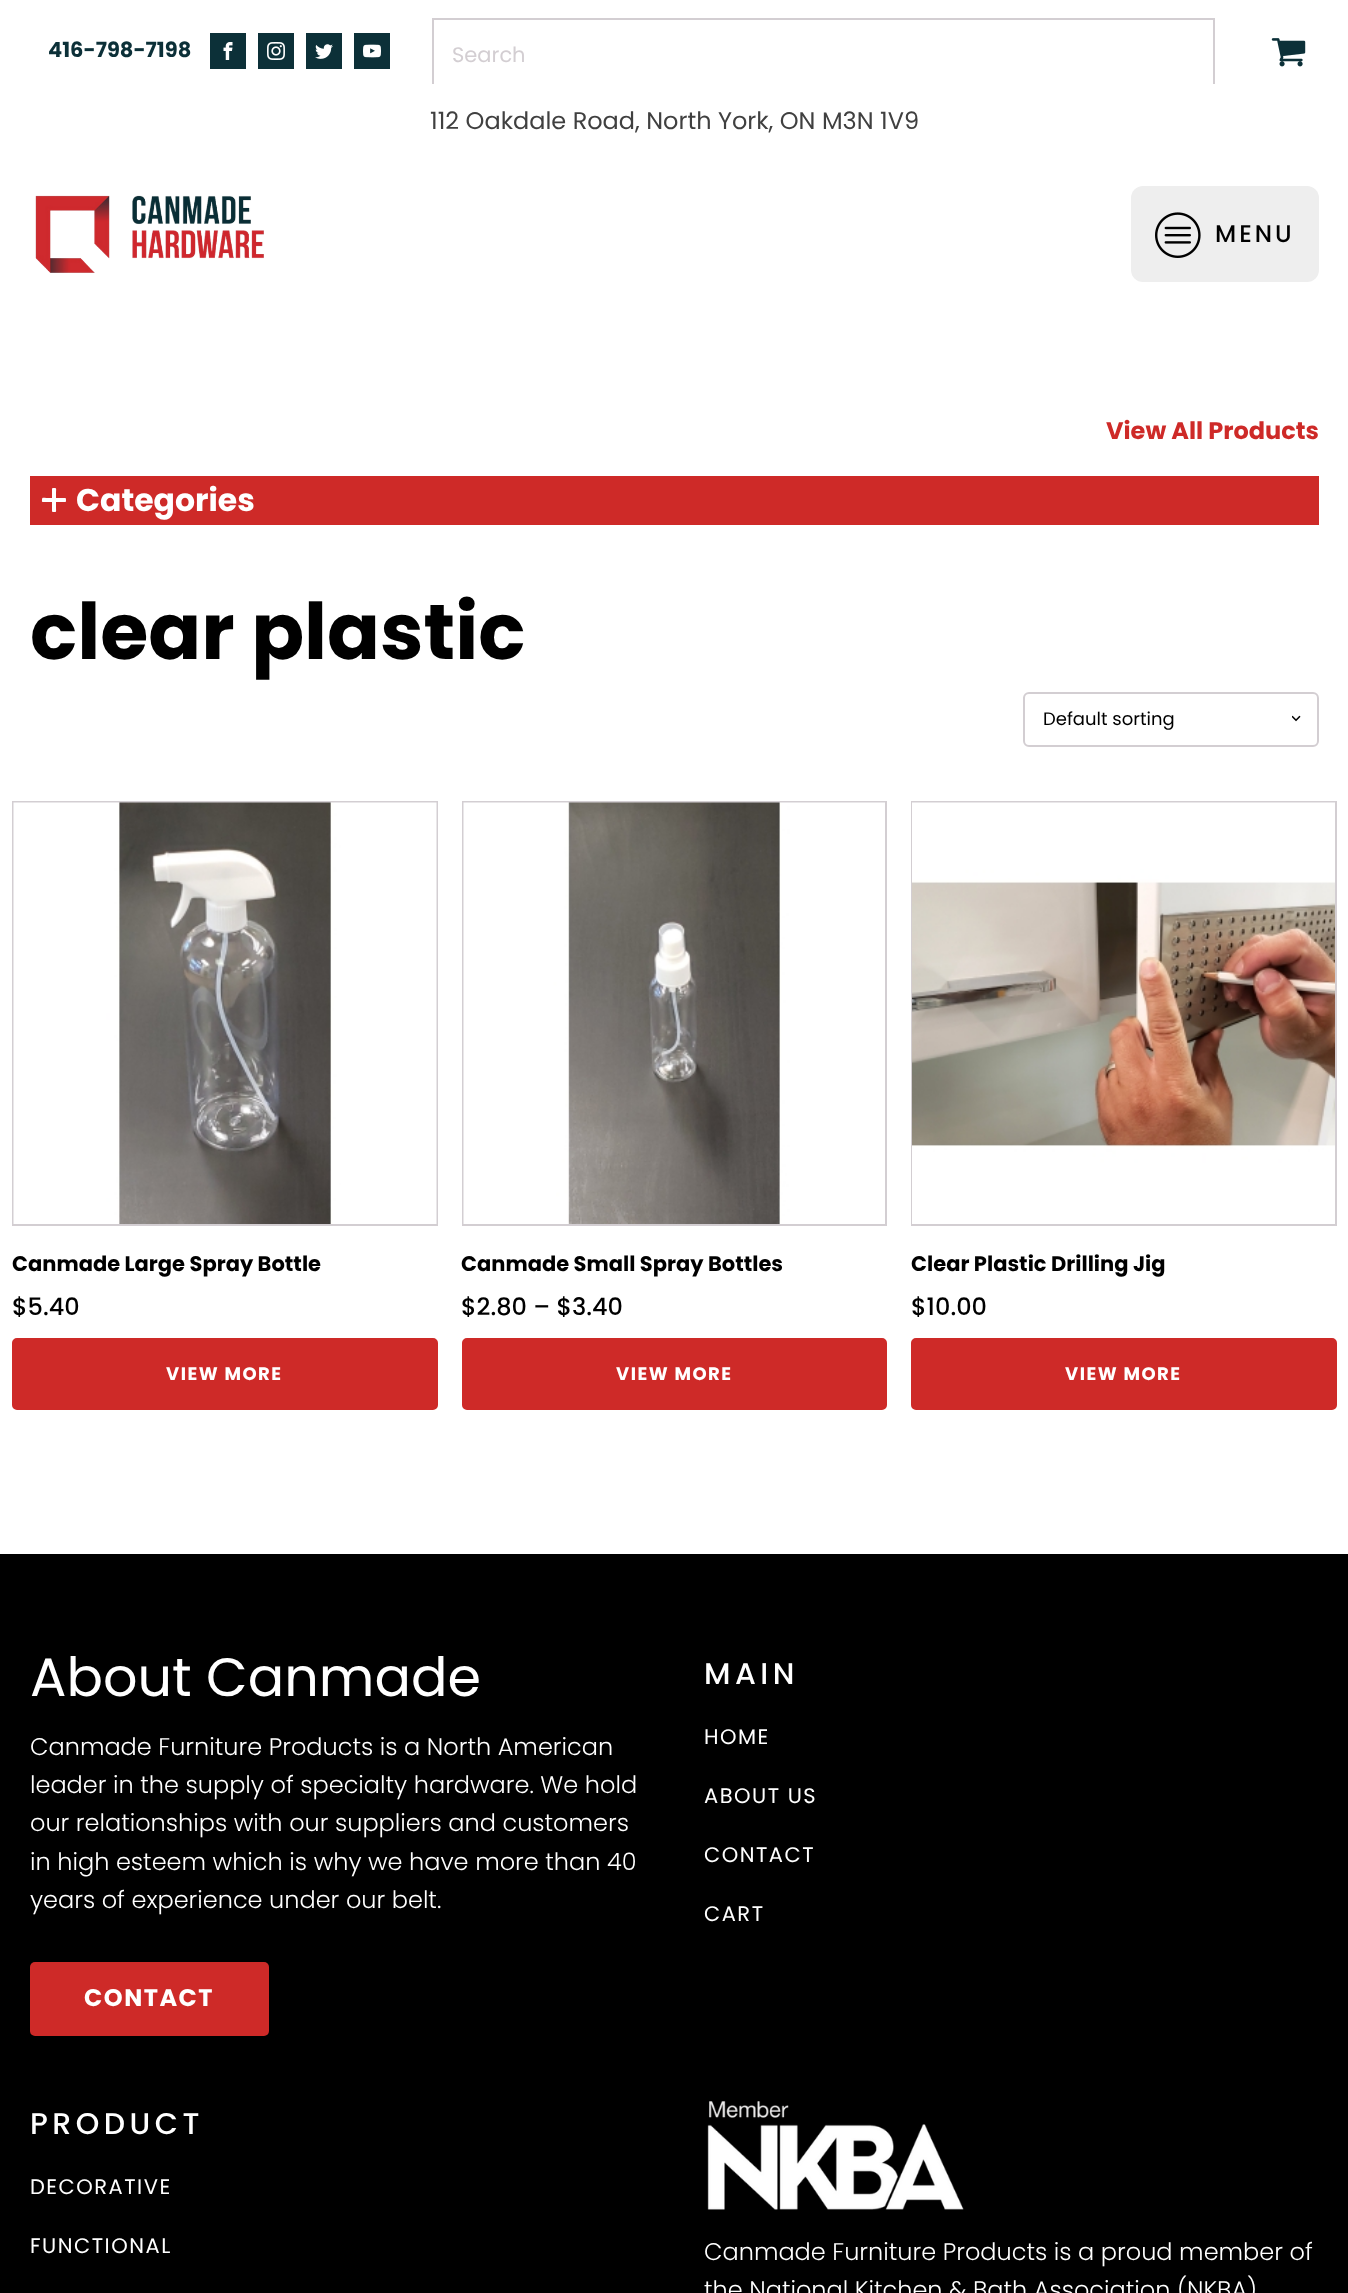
<?xml version="1.0" encoding="UTF-8"?>
<svg xmlns="http://www.w3.org/2000/svg" width="1348" height="2293">
    <defs>
        <clipPath id="clip1"><rect x="432" y="18" width="783" height="66"/></clipPath>
    </defs>
    <rect width="100%" height="100%" fill="#FFFFFF"/>
    <text x="48" y="57" font-family="Poppins" font-size="21" font-weight="700" fill="#0C3038">416-798-7198</text>
    <rect x="210" y="33" width="36" height="36" fill="#0C3038"/>
    <image x="223" y="42" width="10" height="18" href="img_01.png"/>
    <rect x="258" y="33" width="36" height="36" fill="#0C3038"/>
    <image x="267" y="42" width="18" height="18" href="img_02.png"/>
    <rect x="306" y="33" width="36" height="36" fill="#0C3038"/>
    <image x="315" y="44" width="18" height="15" href="img_03.png"/>
    <rect x="354" y="33" width="36" height="36" fill="#0C3038"/>
    <image x="363" y="44" width="18" height="14" href="img_04.png"/>
    <g clip-path="url(#clip1)">
        <rect x="433" y="19" width="781" height="70" fill="none" stroke="#D3CED2" stroke-width="2"/>
    </g>
    <text x="452" y="62" font-family="Poppins" font-size="21" fill="#D3CED2">Search</text>
    <image x="1271" y="38" width="35" height="29" href="img_05.png"/>
    <text x="430" y="129" font-family="Poppins" font-size="24" fill="#404040">112 Oakdale Road, North York, ON M3N 1V9</text>
    <image x="35" y="195" width="229" height="78" href="img_06.png"/>
    <rect x="1131" y="186" width="188" height="96" rx="12" fill="#EEEEEE"/>
    <image x="1155" y="212" width="46" height="46" href="img_07.png"/>
    <text x="1215" y="242" font-family="Poppins" font-size="24" font-weight="500" letter-spacing="3" fill="#000000">MENU</text>
    <text x="1106" y="439" font-family="Poppins" font-size="24" font-weight="700" fill="#CE2A28">View All Products</text>
    <rect x="30" y="476" width="1289" height="49" fill="#CE2A28"/>
    <path d="M 52 511 V 488.5 C 52.5 487.5 53.5 488 54 488 C 57 488 56 489 56 492.5 V 507.5 C 56 512 57 512 53 512 C 52.5 512 52 511.5 52 511 Z" fill="#FFFFFF"/>
    <path d="M 65.5 502 H 42.5 C 41.5 501.5 42 500.5 42 500 C 42 497 43 498 46.5 498 H 61.5 C 66 498 66 497 66 501 C 66 501.5 65.5 502 65.5 502 Z" fill="#FFFFFF"/>
    <text x="76" y="511" font-family="Poppins" font-size="31.5" font-weight="700" fill="#FFFFFF">Categories</text>
    <text x="30" y="659" font-family="Poppins" font-size="78" font-weight="700" fill="#000000">clear plastic</text>
    <image x="1292" y="715" width="9" height="7" href="img_08.png"/>
    <rect x="1024" y="693" width="294" height="53" rx="5" fill="none" stroke="#D3CED2" stroke-width="2"/>
    <text x="1043" y="725" font-family="Poppins" font-size="18" fill="#000000">Default sorting</text>
    <rect x="13" y="802" width="424" height="423" fill="none" stroke="#D3CED2" stroke-width="2"/>
    <image x="13" y="802" width="424" height="422" href="img_09.png"/>
    <text x="12" y="1271" font-family="Poppins" font-size="21" font-weight="700" fill="#000000">Canmade Large Spray Bottle</text>
    <text x="12" y="1315" font-family="Poppins" font-size="24" font-weight="500" fill="#000000">$5.40</text>
    <rect x="13" y="1339" width="424" height="70" rx="4" fill="#CE2A28" stroke="#CE2A28" stroke-width="2"/>
    <text x="166" y="1380" font-family="Poppins" font-size="18" font-weight="700" letter-spacing="1.5" fill="#FFFFFF">VIEW MORE</text>
    <rect x="463" y="802" width="423" height="423" fill="none" stroke="#D3CED2" stroke-width="2"/>
    <image x="463" y="802" width="422" height="422" href="img_10.png"/>
    <text x="461" y="1271" font-family="Poppins" font-size="21" font-weight="700" fill="#000000">Canmade Small Spray Bottles</text>
    <text x="461" y="1315" font-family="Poppins" font-size="24" font-weight="500" fill="#000000">$2.80 – $3.40</text>
    <rect x="463" y="1339" width="423" height="70" rx="4" fill="#CE2A28" stroke="#CE2A28" stroke-width="2"/>
    <text x="616" y="1380" font-family="Poppins" font-size="18" font-weight="700" letter-spacing="1.5" fill="#FFFFFF">VIEW MORE</text>
    <rect x="912" y="802" width="424" height="423" fill="none" stroke="#D3CED2" stroke-width="2"/>
    <image x="912" y="802" width="423" height="422" href="img_11.png"/>
    <text x="911" y="1271" font-family="Poppins" font-size="21" font-weight="700" fill="#000000">Clear Plastic Drilling Jig</text>
    <text x="911" y="1315" font-family="Poppins" font-size="24" font-weight="500" fill="#000000">$10.00</text>
    <rect x="912" y="1339" width="424" height="70" rx="4" fill="#CE2A28" stroke="#CE2A28" stroke-width="2"/>
    <text x="1065" y="1380" font-family="Poppins" font-size="18" font-weight="700" letter-spacing="1.5" fill="#FFFFFF">VIEW MORE</text>
    <rect x="0" y="1554" width="1348" height="739" fill="#000000"/>
    <text x="30" y="1696" font-family="Poppins" font-size="54" fill="#FFFFFF">About Canmade</text>
    <text font-family="Poppins" font-size="24" font-weight="300" fill="#FFFFFF">
        <tspan x="30" y="1755">Canmade Furniture Products is a North American</tspan>
        <tspan x="30" y="1793">leader in the supply of specialty hardware. We hold</tspan>
        <tspan x="30" y="1831">our relationships with our suppliers and customers</tspan>
        <tspan x="30" y="1870">in high esteem which is why we have more than 40</tspan>
        <tspan x="30" y="1908">years of experience under our belt.</tspan>
    </text>
    <rect x="30" y="1962" width="239" height="74" rx="5" fill="#CE2A28"/>
    <text x="84" y="2006" font-family="Poppins" font-size="24" font-weight="700" letter-spacing="1.5" fill="#FFFFFF">CONTACT</text>
    <text x="704" y="1684" font-family="Poppins" font-size="30" font-weight="500" letter-spacing="4.5" fill="#FFFFFF">MAIN</text>
    <text x="704" y="1744" font-family="Poppins" font-size="21" letter-spacing="1.5" fill="#FFFFFF">HOME</text>
    <text x="704" y="1803" font-family="Poppins" font-size="21" letter-spacing="1.5" fill="#FFFFFF">ABOUT US</text>
    <text x="704" y="1862" font-family="Poppins" font-size="21" letter-spacing="1.5" fill="#FFFFFF">CONTACT</text>
    <text x="704" y="1921" font-family="Poppins" font-size="21" letter-spacing="1.5" fill="#FFFFFF">CART</text>
    <text x="30" y="2134" font-family="Poppins" font-size="30" font-weight="500" letter-spacing="4.5" fill="#FFFFFF">PRODUCT</text>
    <text x="30" y="2194" font-family="Poppins" font-size="21" letter-spacing="1.5" fill="#FFFFFF">DECORATIVE</text>
    <text x="30" y="2253" font-family="Poppins" font-size="21" letter-spacing="1.5" fill="#FFFFFF">FUNCTIONAL</text>
    <image x="707" y="2101" width="257" height="109" href="img_12.png"/>
    <text font-family="Poppins" font-size="24" font-weight="300" fill="#FFFFFF">
        <tspan x="704" y="2260">Canmade Furniture Products is a proud member of</tspan>
        <tspan x="704" y="2298">the National Kitchen &amp; Bath Association (NKBA)</tspan>
    </text>
</svg>
